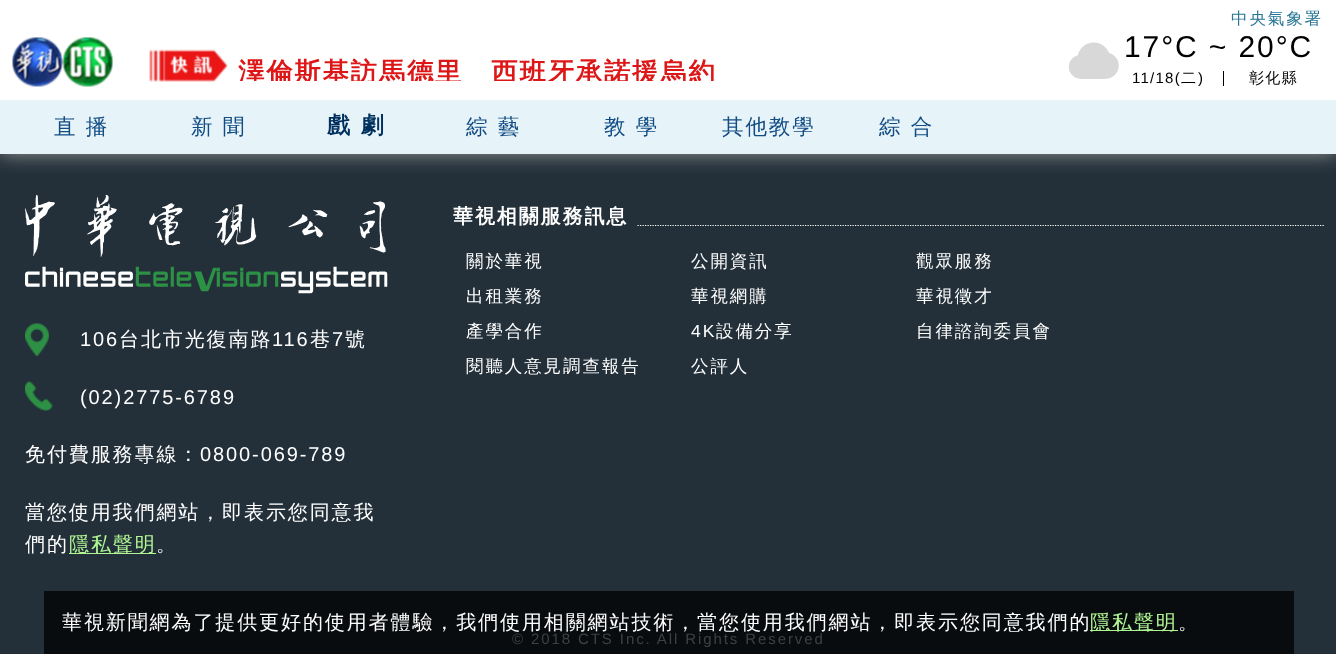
<?xml version="1.0" encoding="UTF-8"?>
<svg xmlns="http://www.w3.org/2000/svg" width="1336" height="654">
    <defs>
        <filter id="blur1" x="-50%" y="-200%" width="200%" height="500%"><feGaussianBlur stdDeviation="9.5"/></filter>
        <clipPath id="clip1"><rect x="238" y="58" width="498" height="23"/></clipPath>
    </defs>
    <rect width="100%" height="100%" fill="#23303A"/>
    <rect x="0" y="0" width="1336" height="154" fill="#999999" filter="url(#blur1)"/>
    <rect x="0" y="0" width="1336" height="100" fill="#FFFFFF"/>
    <image x="12" y="37" width="101" height="50" href="img_01.png"/>
    <image x="149" y="49" width="79" height="33" href="img_02.png"/>
    <g clip-path="url(#clip1)">
        <text x="238" y="81" font-family="WenQuanYi Zen Hei" font-size="26.25" font-weight="700" letter-spacing="1.9" fill="#DD1717">澤倫斯基訪馬德里　西班牙承諾援烏約</text>
    </g>
    <text x="1231" y="24" font-family="WenQuanYi Zen Hei" font-size="16.5" font-weight="500" letter-spacing="1.9" fill="#297596">中央氣象署</text>
    <image x="1068" y="42" width="51" height="37" href="img_03.png"/>
    <text x="1124" y="57" font-family="Liberation Sans" font-size="30" letter-spacing="1.9" fill="#000000">17°C ~ 20°C</text>
    <rect x="1223" y="71" width="1" height="15" fill="#000000"/>
    <text x="1132" y="83" font-family="Liberation Sans" font-size="15" letter-spacing="1.25" fill="#000000">11/18(</text>
    <text x="1181" y="83" font-family="WenQuanYi Zen Hei" font-size="15" font-weight="500" letter-spacing="1.25" fill="#000000">二</text>
    <text x="1198" y="83" font-family="Liberation Sans" font-size="15" letter-spacing="1.25" fill="#000000">)</text>
    <text x="1249" y="83" font-family="WenQuanYi Zen Hei" font-size="15" font-weight="500" letter-spacing="1.25" fill="#000000">彰化縣</text>
    <rect x="0" y="100" width="1336" height="54" fill="#E6F3F9"/>
    <text x="54" y="134" font-family="WenQuanYi Zen Hei" font-size="21.5" font-weight="500" letter-spacing="1.9" fill="#114C83">直 播</text>
    <text x="191" y="134" font-family="WenQuanYi Zen Hei" font-size="21.5" font-weight="500" letter-spacing="1.9" fill="#114C83">新 聞</text>
    <text x="327" y="133" font-family="WenQuanYi Zen Hei" font-size="23" font-weight="700" letter-spacing="1.9" fill="#00315E">戲 劇</text>
    <text x="466" y="134" font-family="WenQuanYi Zen Hei" font-size="21.5" font-weight="500" letter-spacing="1.9" fill="#114C83">綜 藝</text>
    <text x="604" y="134" font-family="WenQuanYi Zen Hei" font-size="21.5" font-weight="500" letter-spacing="1.9" fill="#114C83">教 學</text>
    <text x="722" y="134" font-family="WenQuanYi Zen Hei" font-size="21.5" font-weight="500" letter-spacing="1.9" fill="#114C83">其他教學</text>
    <text x="879" y="134" font-family="WenQuanYi Zen Hei" font-size="21.5" font-weight="500" letter-spacing="1.9" fill="#114C83">綜 合</text>
    <rect x="44" y="591" width="1250" height="63" fill="#090C0F"/>
    <text x="453" y="223" font-family="WenQuanYi Zen Hei" font-size="20" font-weight="700" letter-spacing="1.9" fill="#FFFFFF">華視相關服務訊息</text>
    <path d="M 637.5 225.5 H 1324" fill="none" stroke="#FFFFFF" stroke-width="1.2" stroke-dasharray="1.25 1.25"/>
    <text x="466" y="267" font-family="WenQuanYi Zen Hei" font-size="17.5" font-weight="500" letter-spacing="1.9" fill="#FFFFFF">關於華視</text>
    <text x="691" y="267" font-family="WenQuanYi Zen Hei" font-size="17.5" font-weight="500" letter-spacing="1.9" fill="#FFFFFF">公開資訊</text>
    <text x="916" y="267" font-family="WenQuanYi Zen Hei" font-size="17.5" font-weight="500" letter-spacing="1.9" fill="#FFFFFF">觀眾服務</text>
    <text x="466" y="302" font-family="WenQuanYi Zen Hei" font-size="17.5" font-weight="500" letter-spacing="1.9" fill="#FFFFFF">出租業務</text>
    <text x="691" y="302" font-family="WenQuanYi Zen Hei" font-size="17.5" font-weight="500" letter-spacing="1.9" fill="#FFFFFF">華視網購</text>
    <text x="916" y="302" font-family="WenQuanYi Zen Hei" font-size="17.5" font-weight="500" letter-spacing="1.9" fill="#FFFFFF">華視徵才</text>
    <text x="466" y="337" font-family="WenQuanYi Zen Hei" font-size="17.5" font-weight="500" letter-spacing="1.9" fill="#FFFFFF">產學合作</text>
    <text x="691" y="337" font-family="Liberation Sans" font-size="17.5" letter-spacing="1.9" fill="#FFFFFF">4K</text>
    <text x="716" y="337" font-family="WenQuanYi Zen Hei" font-size="17.5" font-weight="500" letter-spacing="1.9" fill="#FFFFFF">設備分享</text>
    <text x="916" y="337" font-family="WenQuanYi Zen Hei" font-size="17.5" font-weight="500" letter-spacing="1.9" fill="#FFFFFF">自律諮詢委員會</text>
    <text x="466" y="372" font-family="WenQuanYi Zen Hei" font-size="17.5" font-weight="500" letter-spacing="1.9" fill="#FFFFFF">閱聽人意見調查報告</text>
    <text x="691" y="372" font-family="WenQuanYi Zen Hei" font-size="17.5" font-weight="500" letter-spacing="1.9" fill="#FFFFFF">公評人</text>
    <image x="25" y="195" width="363" height="99" href="img_04.png"/>
    <image x="25" y="323" width="24" height="33" href="img_05.png"/>
    <text x="80" y="346" font-family="Liberation Sans" font-size="20" letter-spacing="1.9" fill="#FFFFFF">106</text>
    <text x="119" y="346" font-family="WenQuanYi Zen Hei" font-size="20" font-weight="500" letter-spacing="1.9" fill="#FFFFFF">台北市光復南路</text>
    <text x="272" y="346" font-family="Liberation Sans" font-size="20" letter-spacing="1.9" fill="#FFFFFF">116</text>
    <text x="310" y="346" font-family="WenQuanYi Zen Hei" font-size="20" font-weight="500" letter-spacing="1.9" fill="#FFFFFF">巷</text>
    <text x="332" y="346" font-family="Liberation Sans" font-size="20" letter-spacing="1.9" fill="#FFFFFF">7</text>
    <text x="345" y="346" font-family="WenQuanYi Zen Hei" font-size="20" font-weight="500" letter-spacing="1.9" fill="#FFFFFF">號</text>
    <image x="25" y="381" width="28" height="30" href="img_06.png"/>
    <text x="80" y="404" font-family="Liberation Sans" font-size="20" letter-spacing="1.9" fill="#FFFFFF">(02)2775-6789</text>
    <text x="25" y="461" font-family="WenQuanYi Zen Hei" font-size="20" font-weight="500" letter-spacing="1.9" fill="#FFFFFF">免付費服務專線：</text>
    <text x="200" y="461" font-family="Liberation Sans" font-size="20" letter-spacing="1.9" fill="#FFFFFF">0800-069-789</text>
    <text font-family="WenQuanYi Zen Hei" font-size="20" font-weight="500" letter-spacing="1.9" fill="#FFFFFF">
        <tspan x="25" y="519">當您使用我們網站，即表示您同意我</tspan>
        <tspan x="25" y="551">們的</tspan>
    </text>
    <rect x="69" y="553" width="87" height="1" fill="#B1F694"/>
    <text x="69" y="551" font-family="WenQuanYi Zen Hei" font-size="20" font-weight="500" letter-spacing="1.9" fill="#B1F694">隱私聲明</text>
    <text x="156" y="551" font-family="WenQuanYi Zen Hei" font-size="20" font-weight="500" letter-spacing="1.9" fill="#FFFFFF">。</text>
    <text x="512" y="644" font-family="Liberation Sans" font-size="15" letter-spacing="1.9" fill="#404040">© 2018 CTS Inc. All Rights Reserved</text>
    <text x="62" y="629" font-family="WenQuanYi Zen Hei" font-size="20" font-weight="500" letter-spacing="1.9" fill="#FFFFFF">華視新聞網為了提供更好的使用者體驗，我們使用相關網站技術，當您使用我們網站，即表示您同意我們的</text>
    <rect x="1090" y="630" width="88" height="1" fill="#B1F694"/>
    <text x="1090" y="629" font-family="WenQuanYi Zen Hei" font-size="20" font-weight="500" letter-spacing="1.9" fill="#B1F694">隱私聲明</text>
    <text x="1178" y="629" font-family="WenQuanYi Zen Hei" font-size="20" font-weight="500" letter-spacing="1.9" fill="#FFFFFF">。</text>
</svg>
